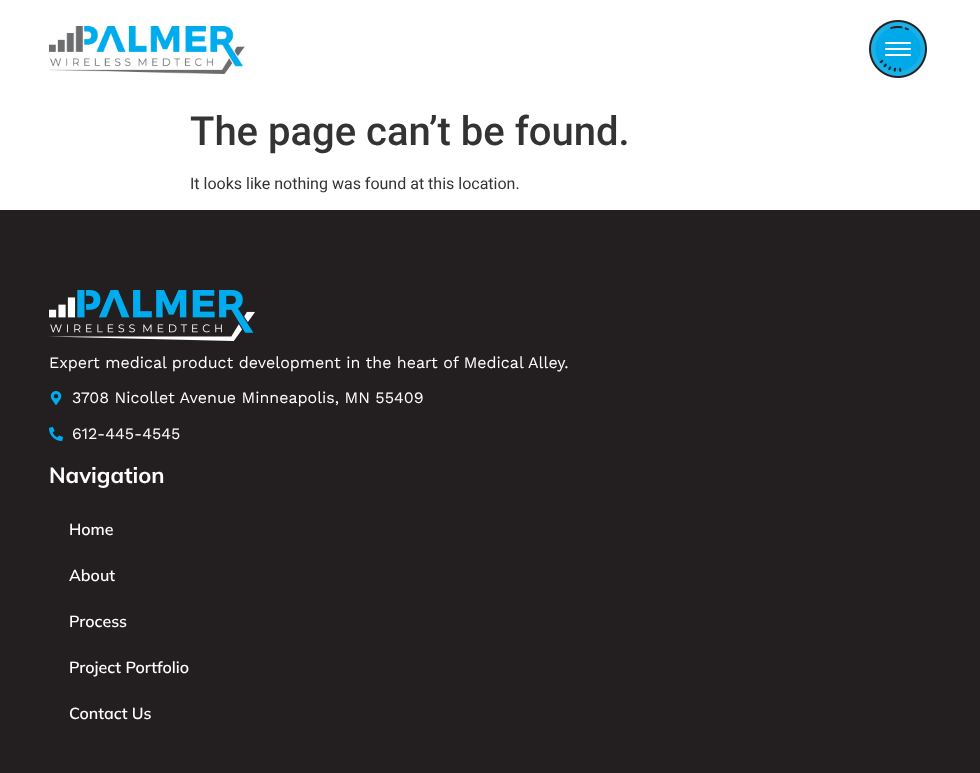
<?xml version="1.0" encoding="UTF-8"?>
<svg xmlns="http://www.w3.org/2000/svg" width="980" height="773">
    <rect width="100%" height="100%" fill="#FFFFFF"/>
    <image x="49" y="26" width="196" height="48" href="img_01.png"/>
    <image x="869" y="20" width="58" height="58" href="img_02.png"/>
    <text x="190" y="145" font-family="Roboto" font-size="40" font-weight="500" fill="#333333">The page can’t be found.</text>
    <text x="190" y="189" font-family="Roboto" font-size="16" fill="#333333">It looks like nothing was found at this location.</text>
    <rect x="0" y="210" width="980" height="563" fill="#231F20"/>
    <image x="49" y="290" width="206" height="51" href="img_03.png"/>
    <text x="49" y="368" font-family="Work Sans" font-size="16" fill="#FFFFFF">Expert medical product development in the heart of Medical Alley.</text>
    <image x="50" y="391" width="12" height="14" href="img_04.png"/>
    <text x="72" y="403" font-family="Work Sans" font-size="16" fill="#FFFFFF">3708 Nicollet Avenue Minneapolis, MN 55409</text>
    <image x="49" y="427" width="14" height="14" href="img_05.png"/>
    <text x="72" y="439" font-family="Work Sans" font-size="16" fill="#FFFFFF">612-445-4545</text>
    <text x="49" y="483" font-family="Mulish" font-size="22" font-weight="700" fill="#FFFFFF">Navigation</text>
    <text x="69" y="535" font-family="Mulish" font-size="16" font-weight="600" fill="#FFFFFF">Home</text>
    <text x="69" y="581" font-family="Mulish" font-size="16" font-weight="600" fill="#FFFFFF">About</text>
    <text x="69" y="627" font-family="Mulish" font-size="16" font-weight="600" fill="#FFFFFF">Process</text>
    <text x="69" y="673" font-family="Mulish" font-size="16" font-weight="600" fill="#FFFFFF">Project Portfolio</text>
    <text x="69" y="719" font-family="Mulish" font-size="16" font-weight="600" fill="#FFFFFF">Contact Us</text>
</svg>
